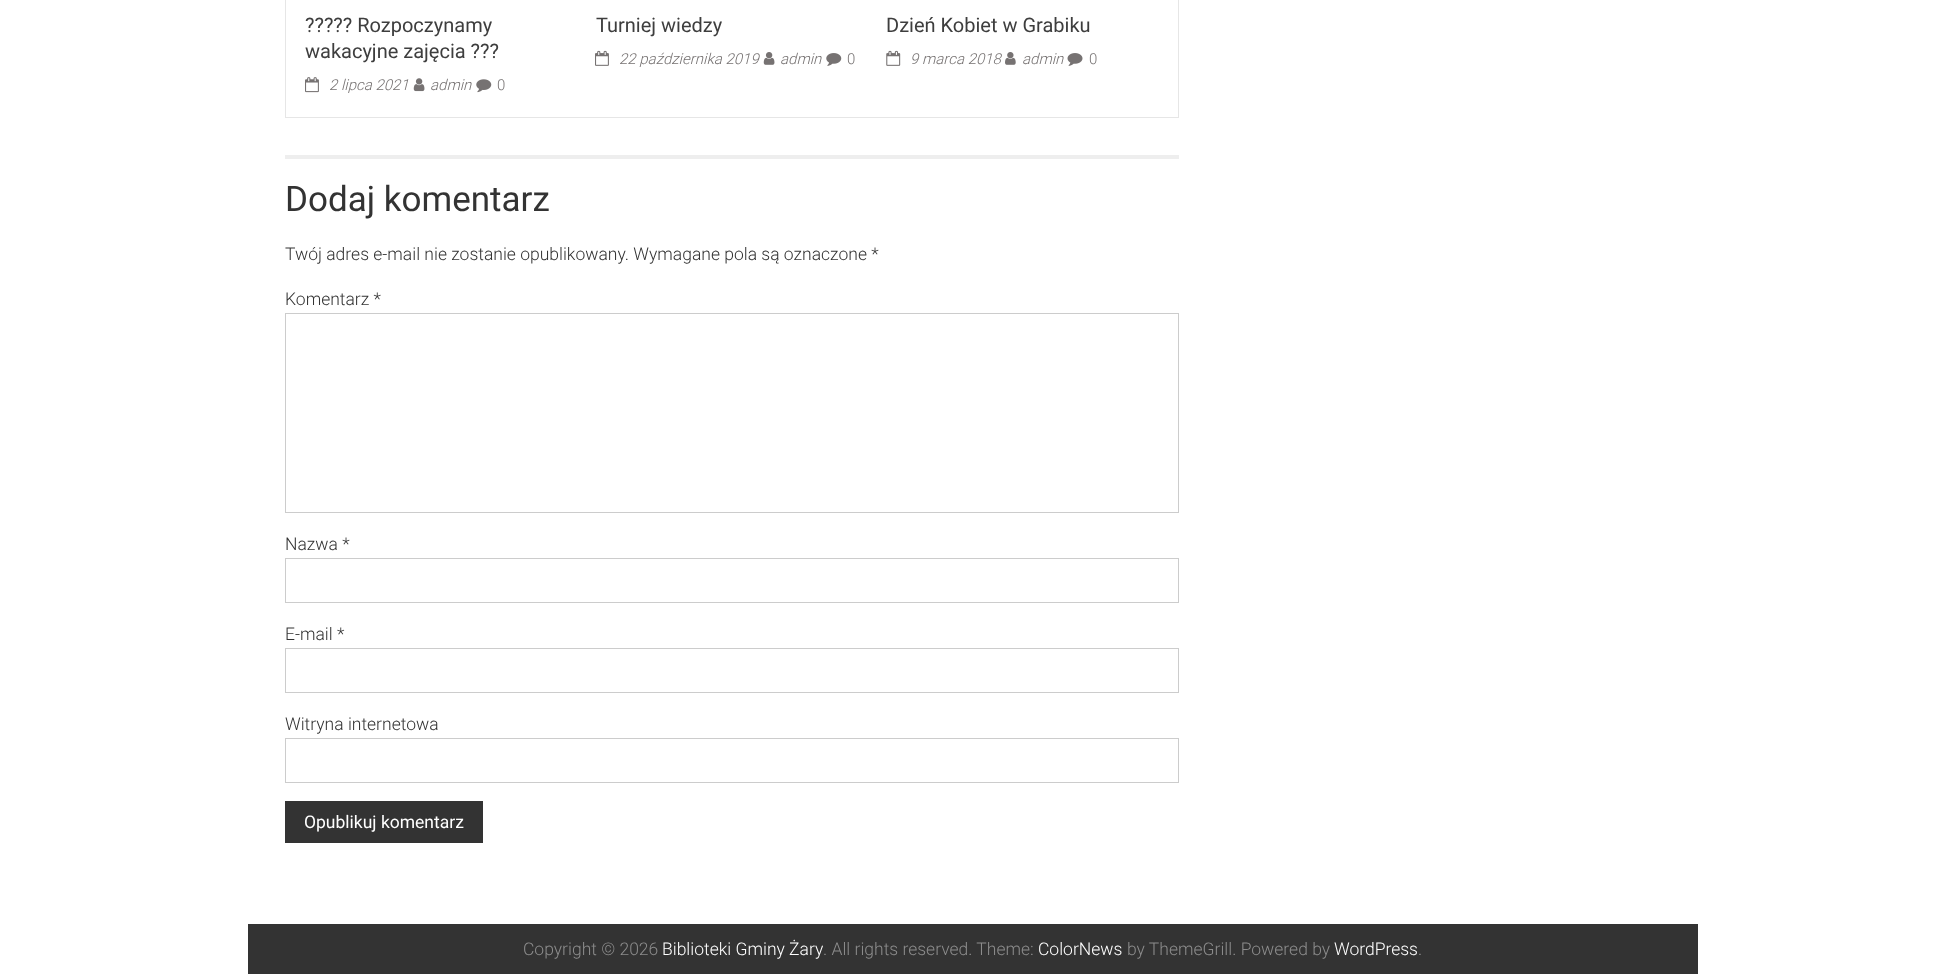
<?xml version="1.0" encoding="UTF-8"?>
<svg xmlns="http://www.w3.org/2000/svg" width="1945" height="974">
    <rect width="100%" height="100%" fill="#FFFFFF"/>
    <rect x="285.5" y="-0.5" width="893" height="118" fill="none" stroke="#E6E6E6"/>
    <text font-family="Roboto" font-size="20" fill="#3E3E3E">
        <tspan x="305" y="32">?‍?‍??? Rozpoczynamy</tspan>
        <tspan x="305" y="58">wakacyjne zajęcia ???</tspan>
    </text>
    <image x="305" y="77" width="14" height="16" href="img_01.png"/>
    <text x="329" y="90" font-family="Roboto" font-size="15" font-weight="300" font-style="italic" fill="#767272">2 lipca 2021</text>
    <image x="413" y="78" width="12" height="14" href="img_02.png"/>
    <text x="430" y="90" font-family="Roboto" font-size="15" font-weight="300" font-style="italic" fill="#767272">admin</text>
    <image x="476" y="79" width="16" height="14" href="img_03.png"/>
    <text x="497" y="90" font-family="Roboto" font-size="15" font-weight="300" fill="#767272">0</text>
    <text x="596" y="32" font-family="Roboto" font-size="20" fill="#3E3E3E">Turniej wiedzy</text>
    <image x="595" y="50" width="14" height="16" href="img_04.png"/>
    <text x="619" y="64" font-family="Roboto" font-size="15" font-weight="300" font-style="italic" fill="#767272">22 października 2019</text>
    <image x="763" y="52" width="12" height="13" href="img_05.png"/>
    <text x="780" y="64" font-family="Roboto" font-size="15" font-weight="300" font-style="italic" fill="#767272">admin</text>
    <image x="826" y="53" width="16" height="13" href="img_06.png"/>
    <text x="847" y="64" font-family="Roboto" font-size="15" font-weight="300" fill="#767272">0</text>
    <text x="886" y="32" font-family="Roboto" font-size="20" fill="#3E3E3E">Dzień Kobiet w Grabiku</text>
    <image x="886" y="50" width="15" height="16" href="img_07.png"/>
    <text x="910" y="64" font-family="Roboto" font-size="15" font-weight="300" font-style="italic" fill="#767272">9 marca 2018</text>
    <image x="1005" y="52" width="11" height="13" href="img_08.png"/>
    <text x="1022" y="64" font-family="Roboto" font-size="15" font-weight="300" font-style="italic" fill="#767272">admin</text>
    <image x="1067" y="53" width="16" height="13" href="img_09.png"/>
    <text x="1089" y="64" font-family="Roboto" font-size="15" font-weight="300" fill="#767272">0</text>
    <rect x="285" y="155" width="894" height="4" fill="#EEEEEE"/>
    <text x="285" y="211" font-family="Roboto" font-size="35" fill="#333333">Dodaj komentarz</text>
    <text x="285" y="260" font-family="Roboto" font-size="17.5" font-weight="300" fill="#333333">Twój adres e-mail nie zostanie opublikowany. Wymagane pola są oznaczone *</text>
    <text x="285" y="305" font-family="Roboto" font-size="17.5" font-weight="300" fill="#333333">Komentarz *</text>
    <rect x="285.5" y="313.5" width="893" height="199" fill="none" stroke="#CCCCCC"/>
    <text x="285" y="550" font-family="Roboto" font-size="17.5" font-weight="300" fill="#333333">Nazwa *</text>
    <rect x="285.5" y="558.5" width="893" height="44" fill="none" stroke="#CCCCCC"/>
    <text x="285" y="640" font-family="Roboto" font-size="17.5" font-weight="300" fill="#333333">E-mail *</text>
    <rect x="285.5" y="648.5" width="893" height="44" fill="none" stroke="#CCCCCC"/>
    <text x="285" y="730" font-family="Roboto" font-size="17.5" font-weight="300" fill="#333333">Witryna internetowa</text>
    <rect x="285.5" y="738.5" width="893" height="44" fill="none" stroke="#CCCCCC"/>
    <rect x="285" y="801" width="198" height="42" fill="#333333"/>
    <text x="304" y="828" font-family="Roboto" font-size="17.5" fill="#FFFFFF">Opublikuj komentarz</text>
    <rect x="248" y="924" width="1450" height="50" fill="#333333"/>
    <text x="523" y="955" font-family="Roboto" font-size="17.5" font-weight="300" fill="#8C8C8C">Copyright © 2026</text>
    <text x="662" y="955" font-family="Roboto" font-size="17.5" font-weight="300" fill="#FFFFFF">Biblioteki Gminy Żary</text>
    <text x="823" y="955" font-family="Roboto" font-size="17.5" font-weight="300" fill="#8C8C8C">. All rights reserved. Theme:</text>
    <text x="1038" y="955" font-family="Roboto" font-size="17.5" font-weight="300" fill="#FFFFFF">ColorNews</text>
    <text x="1127" y="955" font-family="Roboto" font-size="17.5" font-weight="300" fill="#8C8C8C">by ThemeGrill. Powered by</text>
    <text x="1334" y="955" font-family="Roboto" font-size="17.5" font-weight="300" fill="#FFFFFF">WordPress</text>
    <text x="1418" y="955" font-family="Roboto" font-size="17.5" font-weight="300" fill="#8C8C8C">.</text>
</svg>
